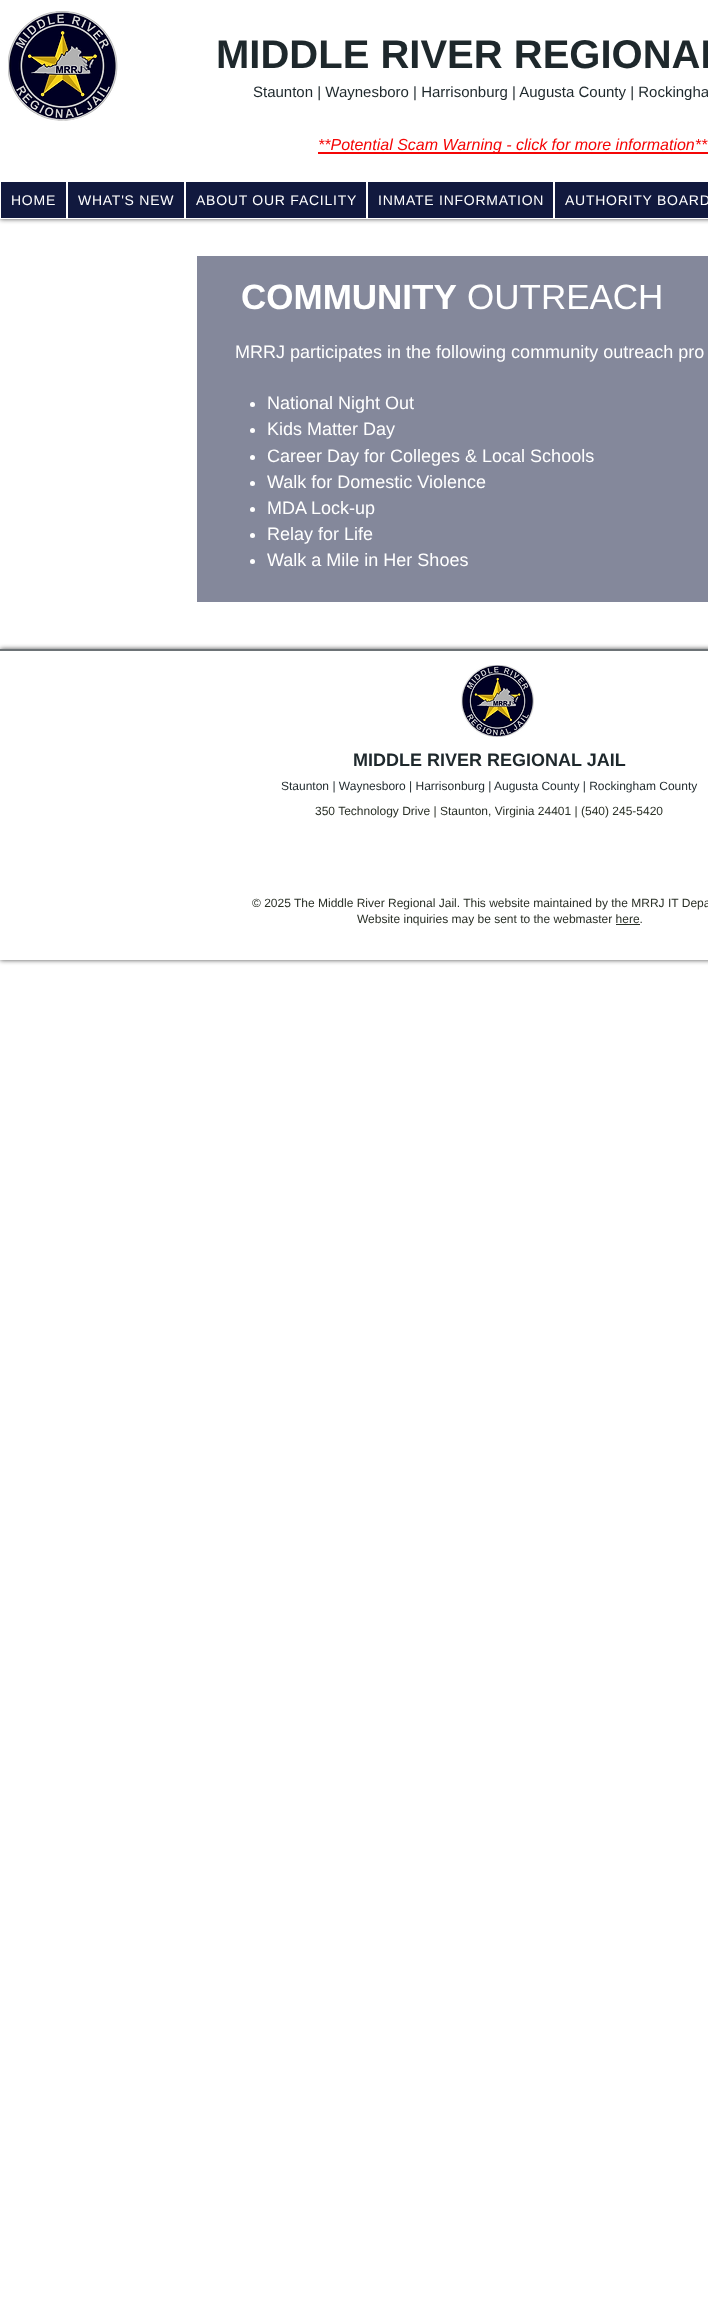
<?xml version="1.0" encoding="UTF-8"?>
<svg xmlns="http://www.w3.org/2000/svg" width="708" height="2324">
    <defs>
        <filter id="blur1" x="-50%" y="-200%" width="200%" height="500%"><feGaussianBlur stdDeviation="2.5"/></filter>
        <clipPath id="clip1"><path d="M 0 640 H 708 V 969 H 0 Z M 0 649 H 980 V 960 H 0 Z" clip-rule="evenodd"/></clipPath>
    </defs>
    <rect width="100%" height="100%" fill="#FFFFFF"/>
    <rect x="0" y="0" width="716" height="219" fill="#000000" fill-opacity="0.7" filter="url(#blur1)"/>
    <rect x="0" y="0" width="708" height="181" fill="#FFFFFF"/>
    <image x="8" y="11" width="110" height="110" href="img_01.png"/>
    <text x="216" y="68" font-family="Liberation Sans" font-size="40" font-weight="700" fill="#1E282C">MIDDLE RIVER REGIONAL</text>
    <text x="253" y="97" font-family="Liberation Sans" font-size="15" fill="#1E282C">Staunton | Waynesboro | Harrisonburg | Augusta County | Rockingha</text>
    <rect x="318" y="152" width="390" height="2" fill="#F40606"/>
    <text x="318" y="150" font-family="Liberation Sans" font-size="16" font-style="italic" fill="#F40606">**Potential Scam Warning - click for more information**</text>
    <rect x="0.5" y="181.5" width="66" height="37" fill="#11193E" stroke="#FFFFFF"/>
    <text x="11" y="205" font-family="Liberation Sans" font-size="14" letter-spacing="0.75" fill="#FFFFFF">HOME</text>
    <rect x="67.5" y="181.5" width="117" height="37" fill="#11193E" stroke="#FFFFFF"/>
    <text x="78" y="205" font-family="Liberation Sans" font-size="14" letter-spacing="0.75" fill="#FFFFFF">WHAT'S NEW</text>
    <rect x="185.5" y="181.5" width="181" height="37" fill="#11193E" stroke="#FFFFFF"/>
    <text x="196" y="205" font-family="Liberation Sans" font-size="14" letter-spacing="0.75" fill="#FFFFFF">ABOUT OUR FACILITY</text>
    <rect x="367.5" y="181.5" width="186" height="37" fill="#11193E" stroke="#FFFFFF"/>
    <text x="378" y="205" font-family="Liberation Sans" font-size="14" letter-spacing="0.75" fill="#FFFFFF">INMATE INFORMATION</text>
    <rect x="554.5" y="181.5" width="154" height="37" fill="#11193E" stroke="#FFFFFF"/>
    <text x="565" y="205" font-family="Liberation Sans" font-size="14" letter-spacing="0.75" fill="#FFFFFF">AUTHORITY BOARD</text>
    <rect x="197" y="256" width="511" height="346" fill="#84889B"/>
    <text x="241" y="309" font-family="Liberation Sans" font-size="35" font-weight="700" fill="#FFFFFF">COMMUNITY</text>
    <text x="467" y="309" font-family="Liberation Sans" font-size="35" fill="#FFFFFF">OUTREACH</text>
    <text x="235" y="358" font-family="Liberation Sans" font-size="18" fill="#FFFFFF">MRRJ participates in the following community outreach pro</text>
    <circle cx="252.5" cy="404.5" r="2.5" fill="#FFFFFF"/>
    <text x="267" y="409" font-family="Liberation Sans" font-size="18" fill="#FFFFFF">National Night Out</text>
    <circle cx="252.5" cy="430.5" r="2.5" fill="#FFFFFF"/>
    <text x="267" y="435" font-family="Liberation Sans" font-size="18" fill="#FFFFFF">Kids Matter Day</text>
    <circle cx="252.5" cy="457.5" r="2.5" fill="#FFFFFF"/>
    <text x="267" y="462" font-family="Liberation Sans" font-size="18" fill="#FFFFFF">Career Day for Colleges &amp; Local Schools</text>
    <circle cx="252.5" cy="483.5" r="2.5" fill="#FFFFFF"/>
    <text x="267" y="488" font-family="Liberation Sans" font-size="18" fill="#FFFFFF">Walk for Domestic Violence</text>
    <circle cx="252.5" cy="509.5" r="2.5" fill="#FFFFFF"/>
    <text x="267" y="514" font-family="Liberation Sans" font-size="18" fill="#FFFFFF">MDA Lock-up</text>
    <circle cx="252.5" cy="535.5" r="2.5" fill="#FFFFFF"/>
    <text x="267" y="540" font-family="Liberation Sans" font-size="18" fill="#FFFFFF">Relay for Life</text>
    <circle cx="252.5" cy="561.5" r="2.5" fill="#FFFFFF"/>
    <text x="267" y="566" font-family="Liberation Sans" font-size="18" fill="#FFFFFF">Walk a Mile in Her Shoes</text>
    <g clip-path="url(#clip1)">
        <rect x="0" y="649" width="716" height="311" fill="#000000" fill-opacity="0.7" filter="url(#blur1)"/>
    </g>
    <rect x="0" y="649" width="708" height="2" fill="#6D7376"/>
    <image x="461" y="665" width="73" height="72" href="img_02.png"/>
    <text x="353" y="766" font-family="Liberation Sans" font-size="18" font-weight="700" fill="#1E282C">MIDDLE RIVER REGIONAL JAIL</text>
    <text x="281" y="790" font-family="Liberation Sans" font-size="12" fill="#1E282C">Staunton | Waynesboro | Harrisonburg | Augusta County | Rockingham County</text>
    <text x="315" y="815" font-family="Liberation Sans" font-size="12" fill="#2A3027">350 Technology Drive | Staunton, Virginia 24401 | (540) 245-5420</text>
    <text x="252" y="907" font-family="Liberation Sans" font-size="12" fill="#2A3027">© 2025 The Middle River Regional Jail. This website maintained by the MRRJ IT Depa</text>
    <text x="357" y="923" font-family="Liberation Sans" font-size="12" fill="#2A3027">Website inquiries may be sent to the webmaster here.</text>
    <rect x="616" y="924" width="24" height="1" fill="#2A3027"/>
</svg>
